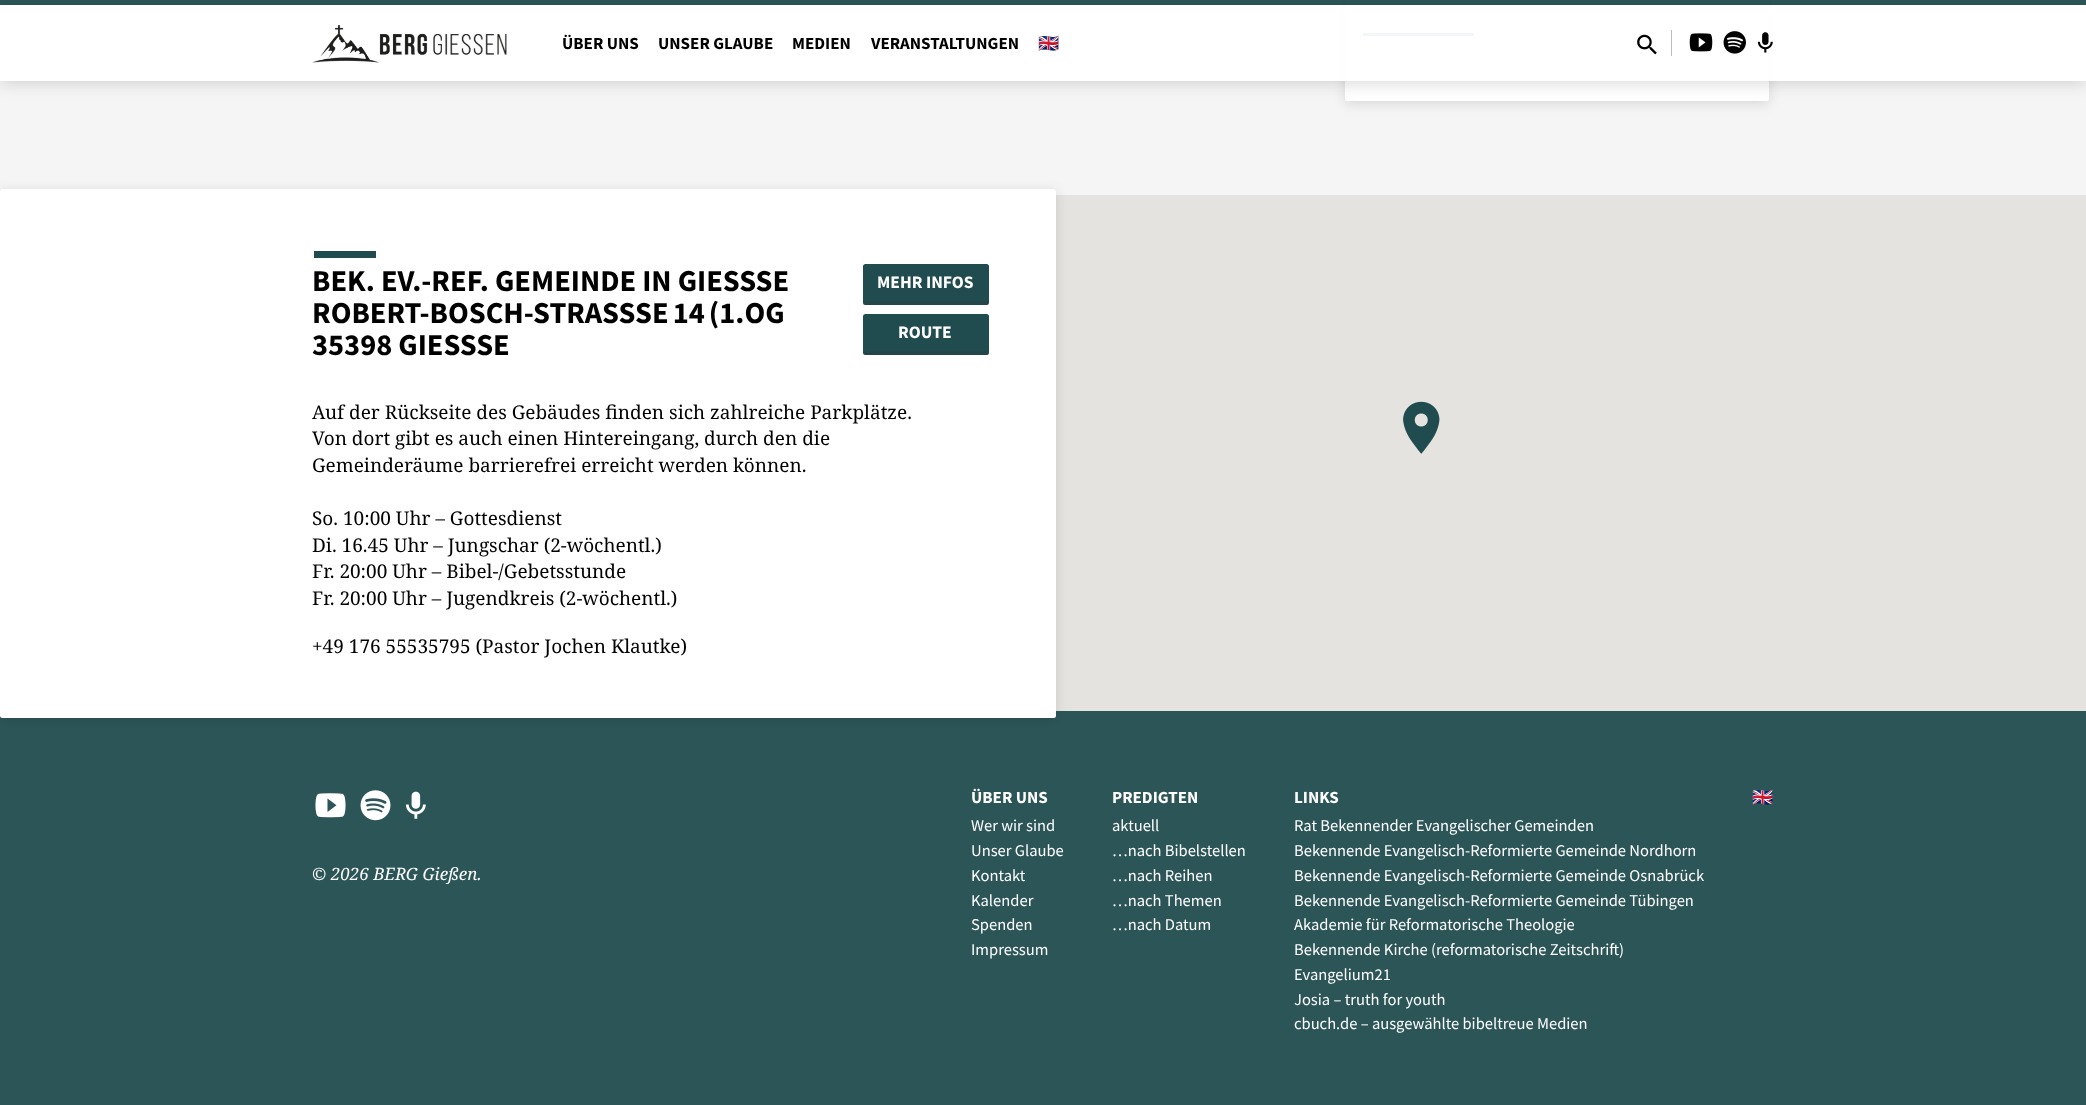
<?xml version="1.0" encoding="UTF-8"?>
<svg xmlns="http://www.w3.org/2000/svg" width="2086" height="1105">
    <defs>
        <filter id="blur1" x="-50%" y="-200%" width="200%" height="500%"><feGaussianBlur stdDeviation="6"/></filter>
        <clipPath id="clip1"><path d="M 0 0 H 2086 V 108 H 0 Z M 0 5 H 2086 V 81 H 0 Z" clip-rule="evenodd"/></clipPath>
        <filter id="blur2" x="-50%" y="-200%" width="200%" height="500%"><feGaussianBlur stdDeviation="7.5"/></filter>
    </defs>
    <rect width="100%" height="100%" fill="#2C5558"/>
    <rect x="0" y="0" width="2086" height="195" fill="#F5F5F5"/>
    <rect x="1345" y="0" width="424" height="104" rx="2.5" fill="#000000" fill-opacity="0.12" filter="url(#blur1)"/>
    <rect x="1345" y="-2" width="424" height="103" rx="2.5" fill="#FFFFFF"/>
    <rect x="0" y="0" width="2086" height="5" fill="#214C4F" fill-opacity="0.95"/>
    <rect x="1363" y="33" width="111" height="3" fill="#214C4F"/>
    <rect x="0" y="5" width="2086" height="76" fill="#FFFFFF" fill-opacity="0.95"/>
    <g clip-path="url(#clip1)">
        <rect x="0" y="8" width="2086" height="76" fill="#000000" fill-opacity="0.14" filter="url(#blur2)"/>
    </g>
    <image x="312" y="25" width="195" height="38" href="img_01.png"/>
    <text x="562" y="49" font-family="Source Sans Pro" font-size="17" font-weight="700" fill="#000000">ÜBER UNS</text>
    <text x="658" y="49" font-family="Source Sans Pro" font-size="17" font-weight="700" fill="#000000">UNSER GLAUBE</text>
    <text x="792" y="49" font-family="Source Sans Pro" font-size="17" font-weight="700" fill="#000000">MEDIEN</text>
    <text x="871" y="49" font-family="Source Sans Pro" font-size="17" font-weight="700" fill="#000000">VERANSTALTUNGEN</text>
    <text x="1038" y="49" font-family="Noto Color Emoji" font-size="17" font-weight="700" fill="#000000">🇬🇧</text>
    <image x="1637" y="34" width="20" height="21" href="img_02.png"/>
    <rect x="1671" y="30" width="1" height="26" fill="#BBBBBB"/>
    <image x="1689" y="33" width="24" height="19" href="img_03.png"/>
    <image x="1723" y="31" width="23" height="23" href="img_04.png"/>
    <image x="1757" y="32" width="16" height="21" href="img_05.png"/>
    <rect x="1056" y="195" width="1030" height="516" fill="#E5E3DF"/>
    <rect x="0" y="191" width="1056" height="529" rx="2.5" fill="#000000" fill-opacity="0.12" filter="url(#blur1)"/>
    <rect x="0" y="189" width="1056" height="529" rx="2.5" fill="#FFFFFF"/>
    <image x="1403" y="401" width="37" height="53" href="img_06.png"/>
    <rect x="314" y="251" width="62" height="7" fill="#214C4F"/>
    <text font-family="Source Sans Pro" font-size="30.4" font-weight="700" fill="#000000">
        <tspan x="312" y="291">BEK. EV.-REF. GEMEINDE IN GIESSSE</tspan>
        <tspan x="312" y="323">ROBERT-BOSCH-STRASS</tspan>
    </text>
    <text x="635" y="323" word-spacing="-2" font-family="Source Sans Pro" font-size="30.4" font-weight="700" fill="#000000">SE 14 (1.OG</text>
    <text x="312" y="355" font-family="Source Sans Pro" font-size="30.4" font-weight="700" fill="#000000">35398 GIESSSE</text>
    <rect x="863" y="264" width="126" height="41" rx="2.5" fill="#214C4F"/>
    <rect x="864" y="301" width="124" height="4" fill="#323232" fill-opacity="0.25"/>
    <text x="877" y="288" font-family="Source Sans Pro" font-size="17.5" font-weight="700" fill="#FFFFFF">MEHR INFOS</text>
    <rect x="863" y="314" width="126" height="41" rx="2.5" fill="#214C4F"/>
    <rect x="864" y="351" width="124" height="4" fill="#323232" fill-opacity="0.25"/>
    <text x="898" y="338" font-family="Source Sans Pro" font-size="17.5" font-weight="700" fill="#FFFFFF">ROUTE</text>
    <text font-family="Noto Serif" font-size="19" fill="#000000">
        <tspan x="312" y="419">Auf der Rückseite des Gebäudes finden sich zahlreiche Parkplätze.</tspan>
        <tspan x="312" y="445">Von dort gibt es auch einen Hintereingang, durch den die</tspan>
        <tspan x="312" y="472">Gemeinderäume barrierefrei erreicht werden können.</tspan>
    </text>
    <text font-family="Noto Serif" font-size="19" fill="#000000">
        <tspan x="312" y="525">So. 10:00 Uhr – Gottesdienst</tspan>
        <tspan x="312" y="552">Di. 16.45 Uhr – Jungschar (2-wöchentl.)</tspan>
        <tspan x="312" y="578">Fr. 20:00 Uhr – Bibel-/Gebetsstunde</tspan>
        <tspan x="312" y="605">Fr. 20:00 Uhr – Jugendkreis (2-wöchentl.)</tspan>
    </text>
    <text x="312" y="653" font-family="Noto Serif" font-size="19" fill="#000000">+49 176 55535795 (Pastor Jochen Klautke)</text>
    <image x="315" y="793" width="31" height="25" href="img_07.png"/>
    <image x="360" y="790" width="31" height="31" href="img_08.png"/>
    <image x="405" y="791" width="21" height="28" href="img_09.png"/>
    <text x="312" y="880" font-family="Noto Serif" font-size="17" font-style="italic" fill="#FFFFFF">© 2026 BERG Gießen.</text>
    <text x="971" y="803" font-family="Source Sans Pro" font-size="17" font-weight="700" fill="#FFFFFF">ÜBER UNS</text>
    <text font-family="Source Sans Pro" font-size="16.5" fill="#FFFFFF">
        <tspan x="971" y="831">Wer wir sind</tspan>
        <tspan x="971" y="856">Unser Glaube</tspan>
        <tspan x="971" y="881">Kontakt</tspan>
        <tspan x="971" y="906">Kalender</tspan>
        <tspan x="971" y="930">Spenden</tspan>
        <tspan x="971" y="955">Impressum</tspan>
    </text>
    <text x="1112" y="803" font-family="Source Sans Pro" font-size="17" font-weight="700" fill="#FFFFFF">PREDIGTEN</text>
    <text font-family="Source Sans Pro" font-size="16.5" fill="#FFFFFF">
        <tspan x="1112" y="831">aktuell</tspan>
        <tspan x="1112" y="856">…nach Bibelstellen</tspan>
        <tspan x="1112" y="881">…nach Reihen</tspan>
        <tspan x="1112" y="906">…nach Themen</tspan>
        <tspan x="1112" y="930">…nach Datum</tspan>
    </text>
    <text x="1294" y="803" font-family="Source Sans Pro" font-size="17" font-weight="700" fill="#FFFFFF">LINKS</text>
    <text font-family="Source Sans Pro" font-size="16.5" fill="#FFFFFF">
        <tspan x="1294" y="831">Rat Bekennender Evangelischer Gemeinden</tspan>
        <tspan x="1294" y="856">Bekennende Evangelisch-Reformierte Gemeinde Nordhorn</tspan>
        <tspan x="1294" y="881">Bekennende Evangelisch-Reformierte Gemeinde Osnabrück</tspan>
        <tspan x="1294" y="906">Bekennende Evangelisch-Reformierte Gemeinde Tübingen</tspan>
        <tspan x="1294" y="930">Akademie für Reformatorische Theologie</tspan>
        <tspan x="1294" y="955">Bekennende Kirche (reformatorische Zeitschrift)</tspan>
        <tspan x="1294" y="980">Evangelium21</tspan>
        <tspan x="1294" y="1005">Josia – truth for youth</tspan>
        <tspan x="1294" y="1029">cbuch.de – ausgewählte bibeltreue Medien</tspan>
    </text>
    <text x="1752" y="803" font-family="Noto Color Emoji" font-size="17" font-weight="700" fill="#FFFFFF">🇬🇧</text>
</svg>
